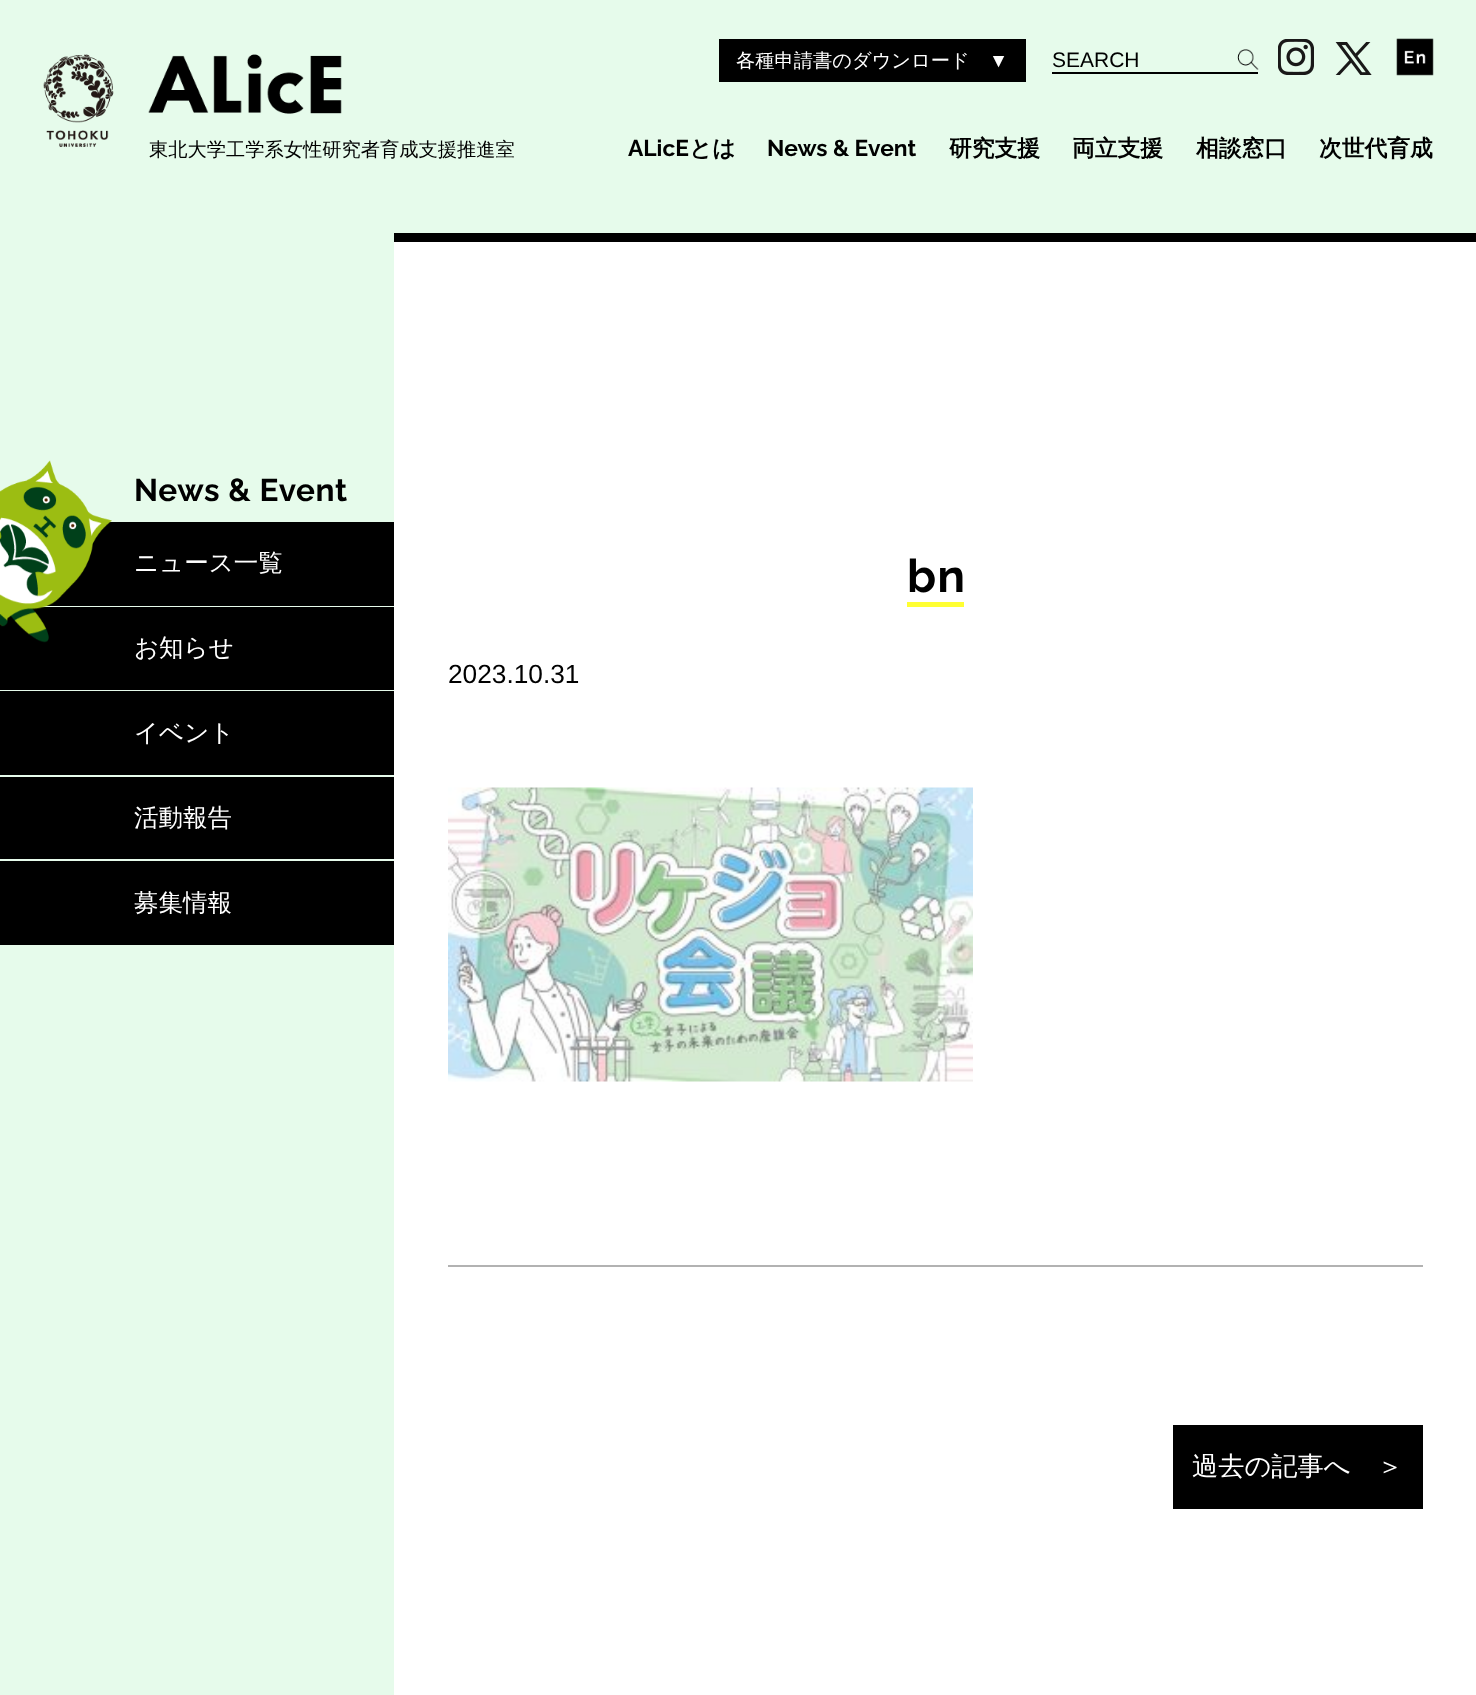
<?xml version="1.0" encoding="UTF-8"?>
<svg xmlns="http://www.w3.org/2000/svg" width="1476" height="1695">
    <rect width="100%" height="100%" fill="#E6FBEB"/>
    <image x="43" y="54" width="71" height="93" href="img_01.png"/>
    <rect x="719" y="39" width="307" height="43" fill="#000000"/>
    <text x="736" y="67" font-family="WenQuanYi Zen Hei" font-size="19.25" font-weight="500" fill="#FFFFFF">各種申請書のダウンロード</text>
    <text x="989" y="67" font-family="Liberation Sans" font-size="19.25" fill="#FFFFFF">▼</text>
    <image x="1237" y="49" width="22" height="21" href="img_02.png"/>
    <rect x="1052" y="72" width="206" height="2" fill="#000000"/>
    <text x="1052" y="67" font-family="Liberation Sans" font-size="21" fill="#000000">SEARCH</text>
    <image x="1278" y="39" width="36" height="36" href="img_03.png"/>
    <image x="1335" y="42" width="37" height="33" href="img_04.png"/>
    <image x="1396" y="38" width="38" height="38" href="img_05.png"/>
    <text x="628" y="156" font-family="Raleway" font-size="22.75" font-weight="700" fill="#000000">ALicE</text>
    <text x="689" y="156" font-family="WenQuanYi Zen Hei" font-size="22.75" font-weight="700" fill="#000000">とは</text>
    <text x="767" y="156" font-family="Raleway" font-size="22.75" font-weight="700" fill="#000000">News &amp; Event</text>
    <text x="949" y="156" font-family="WenQuanYi Zen Hei" font-size="22.75" font-weight="700" fill="#000000">研究支援</text>
    <text x="1072" y="156" font-family="WenQuanYi Zen Hei" font-size="22.75" font-weight="700" fill="#000000">両立支援</text>
    <text x="1196" y="156" font-family="WenQuanYi Zen Hei" font-size="22.75" font-weight="700" fill="#000000">相談窓口</text>
    <text x="1319" y="156" font-family="WenQuanYi Zen Hei" font-size="22.75" font-weight="700" fill="#000000">次世代育成</text>
    <image x="148" y="54" width="194" height="60" href="img_06.png"/>
    <text x="149" y="156" font-family="WenQuanYi Zen Hei" font-size="19.25" font-weight="500" fill="#000000">東北大学工学系女性研究者育成支援推進室</text>
    <rect x="44" y="522" width="350" height="84" fill="#000000"/>
    <rect x="0" y="607" width="394" height="83" fill="#000000"/>
    <image x="0" y="460" width="112" height="183" href="img_07.png"/>
    <text x="134" y="501" font-family="Raleway" font-size="31.5" font-weight="700" letter-spacing="0.6" fill="#000000">News &amp; Event</text>
    <text x="134" y="571" font-family="WenQuanYi Zen Hei" font-size="24.5" font-weight="500" fill="#FFFFFF">ニュース一覧</text>
    <text x="134" y="656" font-family="WenQuanYi Zen Hei" font-size="24.5" font-weight="500" fill="#FFFFFF">お知らせ</text>
    <rect x="0" y="691" width="394" height="84" fill="#000000"/>
    <text x="134" y="741" font-family="WenQuanYi Zen Hei" font-size="24.5" font-weight="500" fill="#FFFFFF">イベント</text>
    <rect x="0" y="777" width="394" height="82" fill="#000000"/>
    <text x="134" y="826" font-family="WenQuanYi Zen Hei" font-size="24.5" font-weight="500" fill="#FFFFFF">活動報告</text>
    <rect x="0" y="861" width="394" height="84" fill="#000000"/>
    <text x="134" y="911" font-family="WenQuanYi Zen Hei" font-size="24.5" font-weight="500" fill="#FFFFFF">募集情報</text>
    <rect x="394" y="242" width="1082" height="1453" fill="#FFFFFF"/>
    <rect x="394" y="233" width="1082" height="9" fill="#000000"/>
    <rect x="448" y="1265" width="975" height="2" fill="#B2B2B2"/>
    <text x="907" y="592" font-family="Raleway" font-size="46" font-weight="700" letter-spacing="1" fill="#000000">bn</text>
    <rect x="907" y="602" width="57" height="5" fill="#FFFF32"/>
    <text x="448" y="683" font-family="Liberation Sans" font-size="26.25" fill="#000000">2023.10.31</text>
    <image x="448" y="787" width="525" height="295" href="img_08.png"/>
    <rect x="1173" y="1425" width="250" height="84" fill="#000000"/>
    <text x="1192" y="1475" font-family="WenQuanYi Zen Hei" font-size="26.25" font-weight="500" fill="#FFFFFF">過去の記事へ　＞</text>
</svg>
